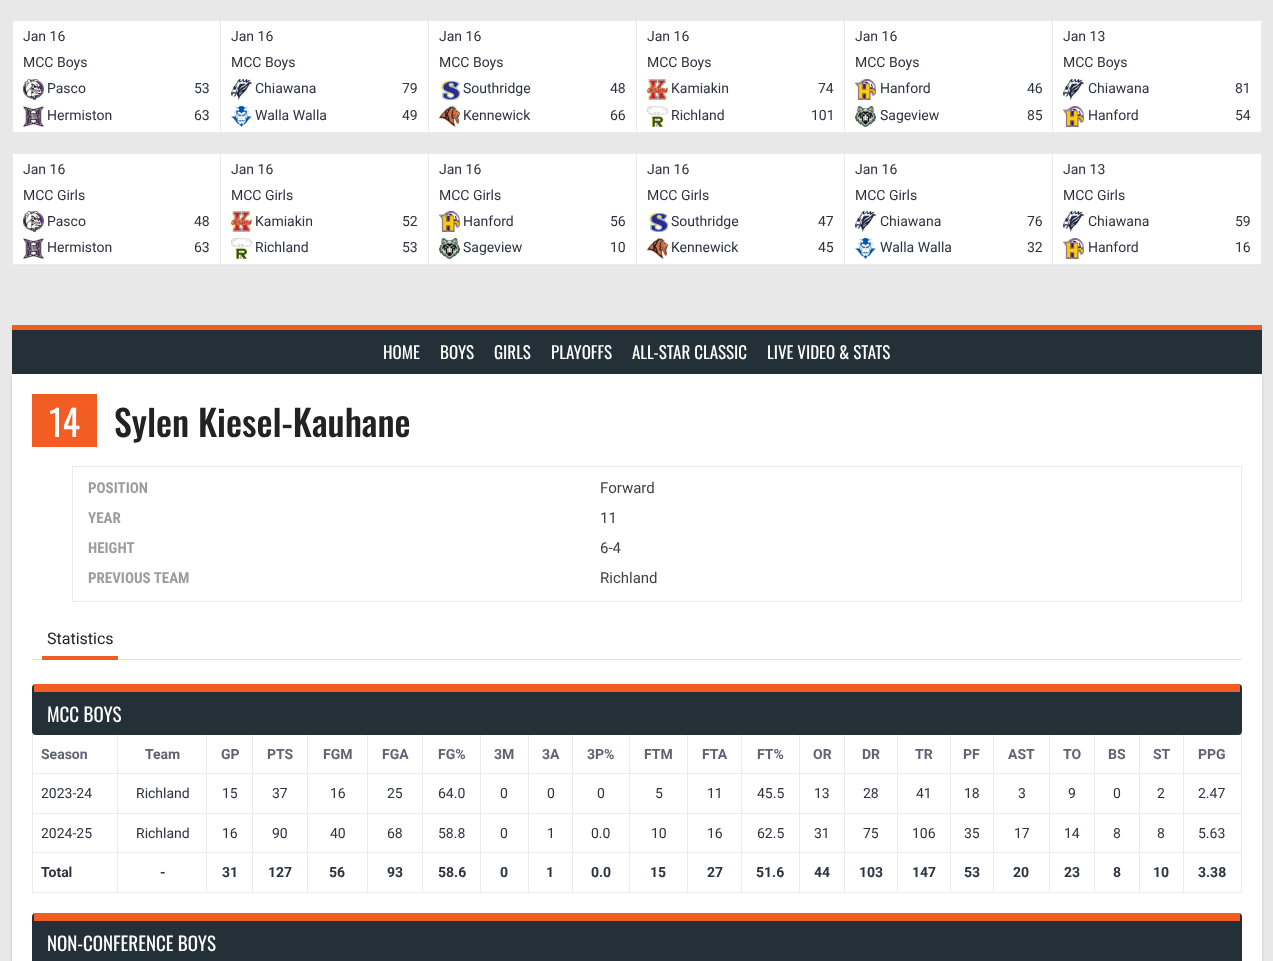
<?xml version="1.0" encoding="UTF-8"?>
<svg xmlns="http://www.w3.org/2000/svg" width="1273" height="961">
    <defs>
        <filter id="blur1" x="-50%" y="-200%" width="200%" height="500%"><feGaussianBlur stdDeviation="1.5"/></filter>
    </defs>
    <rect width="100%" height="100%" fill="#E8E8E8"/>
    <rect x="13" y="21" width="1248" height="111" fill="#FFFFFF"/>
    <rect x="12" y="20" width="1250" height="1" fill="#EBEBEB"/>
    <rect x="1261" y="20" width="1" height="113" fill="#EBEBEB"/>
    <rect x="12" y="132" width="1250" height="1" fill="#EBEBEB"/>
    <rect x="12" y="20" width="1" height="113" fill="#EBEBEB"/>
    <text font-family="Roboto" font-size="14" fill="#2F313F">
        <tspan x="23" y="41">Jan 16</tspan>
        <tspan x="23" y="67">MCC Boys</tspan>
    </text>
    <image x="23" y="79" width="21" height="21" href="img_01.png"/>
    <text x="47" y="93" font-family="Roboto" font-size="14" fill="#2F313F">Pasco</text>
    <text x="194" y="93" font-family="Roboto" font-size="14" fill="#2F313F">53</text>
    <image x="23" y="106" width="21" height="21" href="img_02.png"/>
    <text x="47" y="120" font-family="Roboto" font-size="14" fill="#2F313F">Hermiston</text>
    <text x="194" y="120" font-family="Roboto" font-size="14" fill="#2F313F">63</text>
    <rect x="220" y="20" width="1" height="113" fill="#EBEBEB"/>
    <text font-family="Roboto" font-size="14" fill="#2F313F">
        <tspan x="231" y="41">Jan 16</tspan>
        <tspan x="231" y="67">MCC Boys</tspan>
    </text>
    <image x="231" y="79" width="21" height="21" href="img_03.png"/>
    <text x="255" y="93" font-family="Roboto" font-size="14" fill="#2F313F">Chiawana</text>
    <text x="402" y="93" font-family="Roboto" font-size="14" fill="#2F313F">79</text>
    <image x="231" y="106" width="21" height="21" href="img_04.png"/>
    <text x="255" y="120" font-family="Roboto" font-size="14" fill="#2F313F">Walla Walla</text>
    <text x="402" y="120" font-family="Roboto" font-size="14" fill="#2F313F">49</text>
    <rect x="428" y="20" width="1" height="113" fill="#EBEBEB"/>
    <text font-family="Roboto" font-size="14" fill="#2F313F">
        <tspan x="439" y="41">Jan 16</tspan>
        <tspan x="439" y="67">MCC Boys</tspan>
    </text>
    <image x="439" y="79" width="21" height="21" href="img_05.png"/>
    <text x="463" y="93" font-family="Roboto" font-size="14" fill="#2F313F">Southridge</text>
    <text x="610" y="93" font-family="Roboto" font-size="14" fill="#2F313F">48</text>
    <image x="439" y="106" width="21" height="21" href="img_06.png"/>
    <text x="463" y="120" font-family="Roboto" font-size="14" fill="#2F313F">Kennewick</text>
    <text x="610" y="120" font-family="Roboto" font-size="14" fill="#2F313F">66</text>
    <rect x="636" y="20" width="1" height="113" fill="#EBEBEB"/>
    <text font-family="Roboto" font-size="14" fill="#2F313F">
        <tspan x="647" y="41">Jan 16</tspan>
        <tspan x="647" y="67">MCC Boys</tspan>
    </text>
    <image x="647" y="79" width="21" height="21" href="img_07.png"/>
    <text x="671" y="93" font-family="Roboto" font-size="14" fill="#2F313F">Kamiakin</text>
    <text x="818" y="93" font-family="Roboto" font-size="14" fill="#2F313F">74</text>
    <image x="647" y="106" width="21" height="21" href="img_08.png"/>
    <text x="671" y="120" font-family="Roboto" font-size="14" fill="#2F313F">Richland</text>
    <text x="811" y="120" font-family="Roboto" font-size="14" fill="#2F313F">101</text>
    <rect x="844" y="20" width="1" height="113" fill="#EBEBEB"/>
    <text font-family="Roboto" font-size="14" fill="#2F313F">
        <tspan x="855" y="41">Jan 16</tspan>
        <tspan x="855" y="67">MCC Boys</tspan>
    </text>
    <image x="855" y="79" width="21" height="21" href="img_09.png"/>
    <text x="880" y="93" font-family="Roboto" font-size="14" fill="#2F313F">Hanford</text>
    <text x="1027" y="93" font-family="Roboto" font-size="14" fill="#2F313F">46</text>
    <image x="855" y="106" width="21" height="21" href="img_10.png"/>
    <text x="880" y="120" font-family="Roboto" font-size="14" fill="#2F313F">Sageview</text>
    <text x="1027" y="120" font-family="Roboto" font-size="14" fill="#2F313F">85</text>
    <rect x="1052" y="20" width="1" height="113" fill="#EBEBEB"/>
    <text font-family="Roboto" font-size="14" fill="#2F313F">
        <tspan x="1063" y="41">Jan 13</tspan>
        <tspan x="1063" y="67">MCC Boys</tspan>
    </text>
    <image x="1063" y="79" width="21" height="21" href="img_03.png"/>
    <text x="1088" y="93" font-family="Roboto" font-size="14" fill="#2F313F">Chiawana</text>
    <text x="1235" y="93" font-family="Roboto" font-size="14" fill="#2F313F">81</text>
    <image x="1063" y="106" width="21" height="21" href="img_09.png"/>
    <text x="1088" y="120" font-family="Roboto" font-size="14" fill="#2F313F">Hanford</text>
    <text x="1235" y="120" font-family="Roboto" font-size="14" fill="#2F313F">54</text>
    <rect x="13" y="154" width="1248" height="110" fill="#FFFFFF"/>
    <rect x="12" y="153" width="1250" height="1" fill="#EBEBEB"/>
    <rect x="1261" y="153" width="1" height="112" fill="#EBEBEB"/>
    <rect x="12" y="264" width="1250" height="1" fill="#EBEBEB"/>
    <rect x="12" y="153" width="1" height="112" fill="#EBEBEB"/>
    <text font-family="Roboto" font-size="14" fill="#2F313F">
        <tspan x="23" y="174">Jan 16</tspan>
        <tspan x="23" y="200">MCC Girls</tspan>
    </text>
    <image x="23" y="211" width="21" height="21" href="img_01.png"/>
    <text x="47" y="226" font-family="Roboto" font-size="14" fill="#2F313F">Pasco</text>
    <text x="194" y="226" font-family="Roboto" font-size="14" fill="#2F313F">48</text>
    <image x="23" y="238" width="21" height="21" href="img_02.png"/>
    <text x="47" y="252" font-family="Roboto" font-size="14" fill="#2F313F">Hermiston</text>
    <text x="194" y="252" font-family="Roboto" font-size="14" fill="#2F313F">63</text>
    <rect x="220" y="153" width="1" height="112" fill="#EBEBEB"/>
    <text font-family="Roboto" font-size="14" fill="#2F313F">
        <tspan x="231" y="174">Jan 16</tspan>
        <tspan x="231" y="200">MCC Girls</tspan>
    </text>
    <image x="231" y="211" width="21" height="21" href="img_07.png"/>
    <text x="255" y="226" font-family="Roboto" font-size="14" fill="#2F313F">Kamiakin</text>
    <text x="402" y="226" font-family="Roboto" font-size="14" fill="#2F313F">52</text>
    <image x="231" y="238" width="21" height="21" href="img_08.png"/>
    <text x="255" y="252" font-family="Roboto" font-size="14" fill="#2F313F">Richland</text>
    <text x="402" y="252" font-family="Roboto" font-size="14" fill="#2F313F">53</text>
    <rect x="428" y="153" width="1" height="112" fill="#EBEBEB"/>
    <text font-family="Roboto" font-size="14" fill="#2F313F">
        <tspan x="439" y="174">Jan 16</tspan>
        <tspan x="439" y="200">MCC Girls</tspan>
    </text>
    <image x="439" y="211" width="21" height="21" href="img_11.png"/>
    <text x="463" y="226" font-family="Roboto" font-size="14" fill="#2F313F">Hanford</text>
    <text x="610" y="226" font-family="Roboto" font-size="14" fill="#2F313F">56</text>
    <image x="439" y="238" width="21" height="21" href="img_12.png"/>
    <text x="463" y="252" font-family="Roboto" font-size="14" fill="#2F313F">Sageview</text>
    <text x="610" y="252" font-family="Roboto" font-size="14" fill="#2F313F">10</text>
    <rect x="636" y="153" width="1" height="112" fill="#EBEBEB"/>
    <text font-family="Roboto" font-size="14" fill="#2F313F">
        <tspan x="647" y="174">Jan 16</tspan>
        <tspan x="647" y="200">MCC Girls</tspan>
    </text>
    <image x="647" y="211" width="21" height="21" href="img_13.png"/>
    <text x="671" y="226" font-family="Roboto" font-size="14" fill="#2F313F">Southridge</text>
    <text x="818" y="226" font-family="Roboto" font-size="14" fill="#2F313F">47</text>
    <image x="647" y="238" width="21" height="21" href="img_14.png"/>
    <text x="671" y="252" font-family="Roboto" font-size="14" fill="#2F313F">Kennewick</text>
    <text x="818" y="252" font-family="Roboto" font-size="14" fill="#2F313F">45</text>
    <rect x="844" y="153" width="1" height="112" fill="#EBEBEB"/>
    <text font-family="Roboto" font-size="14" fill="#2F313F">
        <tspan x="855" y="174">Jan 16</tspan>
        <tspan x="855" y="200">MCC Girls</tspan>
    </text>
    <image x="855" y="211" width="21" height="21" href="img_03.png"/>
    <text x="880" y="226" font-family="Roboto" font-size="14" fill="#2F313F">Chiawana</text>
    <text x="1027" y="226" font-family="Roboto" font-size="14" fill="#2F313F">76</text>
    <image x="855" y="238" width="21" height="21" href="img_04.png"/>
    <text x="880" y="252" font-family="Roboto" font-size="14" fill="#2F313F">Walla Walla</text>
    <text x="1027" y="252" font-family="Roboto" font-size="14" fill="#2F313F">32</text>
    <rect x="1052" y="153" width="1" height="112" fill="#EBEBEB"/>
    <text font-family="Roboto" font-size="14" fill="#2F313F">
        <tspan x="1063" y="174">Jan 13</tspan>
        <tspan x="1063" y="200">MCC Girls</tspan>
    </text>
    <image x="1063" y="211" width="21" height="21" href="img_03.png"/>
    <text x="1088" y="226" font-family="Roboto" font-size="14" fill="#2F313F">Chiawana</text>
    <text x="1235" y="226" font-family="Roboto" font-size="14" fill="#2F313F">59</text>
    <image x="1063" y="238" width="21" height="21" href="img_09.png"/>
    <text x="1088" y="252" font-family="Roboto" font-size="14" fill="#2F313F">Hanford</text>
    <text x="1235" y="252" font-family="Roboto" font-size="14" fill="#2F313F">16</text>
    <rect x="12" y="377" width="1250" height="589" fill="#000000" fill-opacity="0.2" filter="url(#blur1)"/>
    <rect x="12" y="330" width="1250" height="44" fill="#233038"/>
    <rect x="12" y="325" width="1250" height="5" fill="#F15D22"/>
    <text x="383" y="359" font-family="Oswald" font-size="17" fill="#FFFFFF">HOME</text>
    <text x="440" y="359" font-family="Oswald" font-size="17" fill="#FFFFFF">BOYS</text>
    <text x="494" y="359" font-family="Oswald" font-size="17" fill="#FFFFFF">GIRLS</text>
    <text x="551" y="359" font-family="Oswald" font-size="17" fill="#FFFFFF">PLAYOFFS</text>
    <text x="632" y="359" font-family="Oswald" font-size="17" fill="#FFFFFF">ALL-STAR CLASSIC</text>
    <text x="767" y="359" font-family="Oswald" font-size="17" fill="#FFFFFF">LIVE VIDEO &amp; STATS</text>
    <rect x="12" y="374" width="1250" height="587" fill="#FFFFFF"/>
    <rect x="1262" y="374" width="1" height="587" fill="#E0E0E0"/>
    <rect x="32" y="394" width="65" height="53" fill="#F15D22"/>
    <text x="49" y="437" font-family="Oswald" font-size="36" fill="#FFFFFF">14</text>
    <text x="114" y="437" font-family="Oswald" font-size="36" font-weight="500" fill="#222222">Sylen Kiesel-Kauhane</text>
    <rect x="72.5" y="466.5" width="1169" height="135" fill="none" stroke="#EBEBEB"/>
    <text x="88" y="493" font-family="Roboto Condensed" font-size="15" font-weight="700" fill="#9C9C9C">POSITION</text>
    <text x="600" y="493" font-family="Roboto" font-size="15" fill="#424242">Forward</text>
    <text x="88" y="523" font-family="Roboto Condensed" font-size="15" font-weight="700" fill="#9C9C9C">YEAR</text>
    <text x="600" y="523" font-family="Roboto" font-size="15" fill="#424242">11</text>
    <text x="88" y="553" font-family="Roboto Condensed" font-size="15" font-weight="700" fill="#9C9C9C">HEIGHT</text>
    <text x="600" y="553" font-family="Roboto" font-size="15" fill="#424242">6-4</text>
    <text x="88" y="583" font-family="Roboto Condensed" font-size="15" font-weight="700" fill="#9C9C9C">PREVIOUS TEAM</text>
    <text x="600" y="583" font-family="Roboto" font-size="15" fill="#424242">Richland</text>
    <rect x="32" y="659" width="1210" height="1" fill="#E0E0E0"/>
    <rect x="42" y="656" width="76" height="4" fill="#F15D22"/>
    <text x="47" y="644" font-family="Roboto" font-size="16" fill="#222222">Statistics</text>
    <rect x="32" y="734" width="1210" height="1" fill="#EBEBEB"/>
    <rect x="1241" y="734" width="1" height="159" fill="#EBEBEB"/>
    <rect x="32" y="892" width="1210" height="1" fill="#EBEBEB"/>
    <rect x="32" y="734" width="1" height="159" fill="#EBEBEB"/>
    <rect x="1183" y="773" width="59" height="1" fill="#EBEBEB"/>
    <rect x="1183" y="813" width="59" height="1" fill="#EBEBEB"/>
    <rect x="1183" y="852" width="59" height="1" fill="#EBEBEB"/>
    <rect x="1183" y="852" width="1" height="41" fill="#EBEBEB"/>
    <rect x="1139" y="852" width="45" height="1" fill="#EBEBEB"/>
    <rect x="1183" y="813" width="1" height="40" fill="#EBEBEB"/>
    <rect x="1139" y="813" width="45" height="1" fill="#EBEBEB"/>
    <rect x="1183" y="773" width="1" height="41" fill="#EBEBEB"/>
    <rect x="1139" y="773" width="45" height="1" fill="#EBEBEB"/>
    <rect x="1139" y="852" width="1" height="41" fill="#EBEBEB"/>
    <rect x="1094" y="852" width="46" height="1" fill="#EBEBEB"/>
    <rect x="1139" y="813" width="1" height="40" fill="#EBEBEB"/>
    <rect x="1094" y="813" width="46" height="1" fill="#EBEBEB"/>
    <rect x="1139" y="773" width="1" height="41" fill="#EBEBEB"/>
    <rect x="1094" y="773" width="46" height="1" fill="#EBEBEB"/>
    <rect x="1094" y="852" width="1" height="41" fill="#EBEBEB"/>
    <rect x="1049" y="852" width="46" height="1" fill="#EBEBEB"/>
    <rect x="1094" y="813" width="1" height="40" fill="#EBEBEB"/>
    <rect x="1049" y="813" width="46" height="1" fill="#EBEBEB"/>
    <rect x="1094" y="773" width="1" height="41" fill="#EBEBEB"/>
    <rect x="1049" y="773" width="46" height="1" fill="#EBEBEB"/>
    <rect x="1049" y="852" width="1" height="41" fill="#EBEBEB"/>
    <rect x="993" y="852" width="57" height="1" fill="#EBEBEB"/>
    <rect x="1049" y="813" width="1" height="40" fill="#EBEBEB"/>
    <rect x="993" y="813" width="57" height="1" fill="#EBEBEB"/>
    <rect x="1049" y="773" width="1" height="41" fill="#EBEBEB"/>
    <rect x="993" y="773" width="57" height="1" fill="#EBEBEB"/>
    <rect x="993" y="852" width="1" height="41" fill="#EBEBEB"/>
    <rect x="950" y="852" width="44" height="1" fill="#EBEBEB"/>
    <rect x="993" y="813" width="1" height="40" fill="#EBEBEB"/>
    <rect x="950" y="813" width="44" height="1" fill="#EBEBEB"/>
    <rect x="993" y="773" width="1" height="41" fill="#EBEBEB"/>
    <rect x="950" y="773" width="44" height="1" fill="#EBEBEB"/>
    <rect x="950" y="852" width="1" height="41" fill="#EBEBEB"/>
    <rect x="897" y="852" width="54" height="1" fill="#EBEBEB"/>
    <rect x="950" y="813" width="1" height="40" fill="#EBEBEB"/>
    <rect x="897" y="813" width="54" height="1" fill="#EBEBEB"/>
    <rect x="950" y="773" width="1" height="41" fill="#EBEBEB"/>
    <rect x="897" y="773" width="54" height="1" fill="#EBEBEB"/>
    <rect x="897" y="852" width="1" height="41" fill="#EBEBEB"/>
    <rect x="844" y="852" width="54" height="1" fill="#EBEBEB"/>
    <rect x="897" y="813" width="1" height="40" fill="#EBEBEB"/>
    <rect x="844" y="813" width="54" height="1" fill="#EBEBEB"/>
    <rect x="897" y="773" width="1" height="41" fill="#EBEBEB"/>
    <rect x="844" y="773" width="54" height="1" fill="#EBEBEB"/>
    <rect x="844" y="852" width="1" height="41" fill="#EBEBEB"/>
    <rect x="799" y="852" width="46" height="1" fill="#EBEBEB"/>
    <rect x="844" y="813" width="1" height="40" fill="#EBEBEB"/>
    <rect x="799" y="813" width="46" height="1" fill="#EBEBEB"/>
    <rect x="844" y="773" width="1" height="41" fill="#EBEBEB"/>
    <rect x="799" y="773" width="46" height="1" fill="#EBEBEB"/>
    <rect x="799" y="852" width="1" height="41" fill="#EBEBEB"/>
    <rect x="741" y="852" width="59" height="1" fill="#EBEBEB"/>
    <rect x="799" y="813" width="1" height="40" fill="#EBEBEB"/>
    <rect x="741" y="813" width="59" height="1" fill="#EBEBEB"/>
    <rect x="799" y="773" width="1" height="41" fill="#EBEBEB"/>
    <rect x="741" y="773" width="59" height="1" fill="#EBEBEB"/>
    <rect x="741" y="852" width="1" height="41" fill="#EBEBEB"/>
    <rect x="687" y="852" width="55" height="1" fill="#EBEBEB"/>
    <rect x="741" y="813" width="1" height="40" fill="#EBEBEB"/>
    <rect x="687" y="813" width="55" height="1" fill="#EBEBEB"/>
    <rect x="741" y="773" width="1" height="41" fill="#EBEBEB"/>
    <rect x="687" y="773" width="55" height="1" fill="#EBEBEB"/>
    <rect x="687" y="852" width="1" height="41" fill="#EBEBEB"/>
    <rect x="629" y="852" width="59" height="1" fill="#EBEBEB"/>
    <rect x="687" y="813" width="1" height="40" fill="#EBEBEB"/>
    <rect x="629" y="813" width="59" height="1" fill="#EBEBEB"/>
    <rect x="687" y="773" width="1" height="41" fill="#EBEBEB"/>
    <rect x="629" y="773" width="59" height="1" fill="#EBEBEB"/>
    <rect x="629" y="852" width="1" height="41" fill="#EBEBEB"/>
    <rect x="572" y="852" width="58" height="1" fill="#EBEBEB"/>
    <rect x="629" y="813" width="1" height="40" fill="#EBEBEB"/>
    <rect x="572" y="813" width="58" height="1" fill="#EBEBEB"/>
    <rect x="629" y="773" width="1" height="41" fill="#EBEBEB"/>
    <rect x="572" y="773" width="58" height="1" fill="#EBEBEB"/>
    <rect x="572" y="852" width="1" height="41" fill="#EBEBEB"/>
    <rect x="528" y="852" width="45" height="1" fill="#EBEBEB"/>
    <rect x="572" y="813" width="1" height="40" fill="#EBEBEB"/>
    <rect x="528" y="813" width="45" height="1" fill="#EBEBEB"/>
    <rect x="572" y="773" width="1" height="41" fill="#EBEBEB"/>
    <rect x="528" y="773" width="45" height="1" fill="#EBEBEB"/>
    <rect x="528" y="852" width="1" height="41" fill="#EBEBEB"/>
    <rect x="480" y="852" width="49" height="1" fill="#EBEBEB"/>
    <rect x="528" y="813" width="1" height="40" fill="#EBEBEB"/>
    <rect x="480" y="813" width="49" height="1" fill="#EBEBEB"/>
    <rect x="528" y="773" width="1" height="41" fill="#EBEBEB"/>
    <rect x="480" y="773" width="49" height="1" fill="#EBEBEB"/>
    <rect x="480" y="852" width="1" height="41" fill="#EBEBEB"/>
    <rect x="422" y="852" width="59" height="1" fill="#EBEBEB"/>
    <rect x="480" y="813" width="1" height="40" fill="#EBEBEB"/>
    <rect x="422" y="813" width="59" height="1" fill="#EBEBEB"/>
    <rect x="480" y="773" width="1" height="41" fill="#EBEBEB"/>
    <rect x="422" y="773" width="59" height="1" fill="#EBEBEB"/>
    <rect x="422" y="852" width="1" height="41" fill="#EBEBEB"/>
    <rect x="367" y="852" width="56" height="1" fill="#EBEBEB"/>
    <rect x="422" y="813" width="1" height="40" fill="#EBEBEB"/>
    <rect x="367" y="813" width="56" height="1" fill="#EBEBEB"/>
    <rect x="422" y="773" width="1" height="41" fill="#EBEBEB"/>
    <rect x="367" y="773" width="56" height="1" fill="#EBEBEB"/>
    <rect x="367" y="852" width="1" height="41" fill="#EBEBEB"/>
    <rect x="307" y="852" width="61" height="1" fill="#EBEBEB"/>
    <rect x="367" y="813" width="1" height="40" fill="#EBEBEB"/>
    <rect x="307" y="813" width="61" height="1" fill="#EBEBEB"/>
    <rect x="367" y="773" width="1" height="41" fill="#EBEBEB"/>
    <rect x="307" y="773" width="61" height="1" fill="#EBEBEB"/>
    <rect x="307" y="852" width="1" height="41" fill="#EBEBEB"/>
    <rect x="252" y="852" width="56" height="1" fill="#EBEBEB"/>
    <rect x="307" y="813" width="1" height="40" fill="#EBEBEB"/>
    <rect x="252" y="813" width="56" height="1" fill="#EBEBEB"/>
    <rect x="307" y="773" width="1" height="41" fill="#EBEBEB"/>
    <rect x="252" y="773" width="56" height="1" fill="#EBEBEB"/>
    <rect x="252" y="852" width="1" height="41" fill="#EBEBEB"/>
    <rect x="206" y="852" width="47" height="1" fill="#EBEBEB"/>
    <rect x="252" y="813" width="1" height="40" fill="#EBEBEB"/>
    <rect x="206" y="813" width="47" height="1" fill="#EBEBEB"/>
    <rect x="252" y="773" width="1" height="41" fill="#EBEBEB"/>
    <rect x="206" y="773" width="47" height="1" fill="#EBEBEB"/>
    <rect x="206" y="852" width="1" height="41" fill="#EBEBEB"/>
    <rect x="117" y="852" width="90" height="1" fill="#EBEBEB"/>
    <rect x="206" y="813" width="1" height="40" fill="#EBEBEB"/>
    <rect x="117" y="813" width="90" height="1" fill="#EBEBEB"/>
    <rect x="206" y="773" width="1" height="41" fill="#EBEBEB"/>
    <rect x="117" y="773" width="90" height="1" fill="#EBEBEB"/>
    <rect x="117" y="852" width="1" height="41" fill="#EBEBEB"/>
    <rect x="32" y="852" width="86" height="1" fill="#EBEBEB"/>
    <rect x="117" y="813" width="1" height="40" fill="#EBEBEB"/>
    <rect x="32" y="813" width="86" height="1" fill="#EBEBEB"/>
    <rect x="117" y="773" width="1" height="41" fill="#EBEBEB"/>
    <rect x="32" y="773" width="86" height="1" fill="#EBEBEB"/>
    <rect x="117" y="734" width="1" height="40" fill="#EBEBEB"/>
    <rect x="206" y="734" width="1" height="40" fill="#EBEBEB"/>
    <rect x="252" y="734" width="1" height="40" fill="#EBEBEB"/>
    <rect x="307" y="734" width="1" height="40" fill="#EBEBEB"/>
    <rect x="367" y="734" width="1" height="40" fill="#EBEBEB"/>
    <rect x="422" y="734" width="1" height="40" fill="#EBEBEB"/>
    <rect x="480" y="734" width="1" height="40" fill="#EBEBEB"/>
    <rect x="528" y="734" width="1" height="40" fill="#EBEBEB"/>
    <rect x="572" y="734" width="1" height="40" fill="#EBEBEB"/>
    <rect x="629" y="734" width="1" height="40" fill="#EBEBEB"/>
    <rect x="687" y="734" width="1" height="40" fill="#EBEBEB"/>
    <rect x="741" y="734" width="1" height="40" fill="#EBEBEB"/>
    <rect x="799" y="734" width="1" height="40" fill="#EBEBEB"/>
    <rect x="844" y="734" width="1" height="40" fill="#EBEBEB"/>
    <rect x="897" y="734" width="1" height="40" fill="#EBEBEB"/>
    <rect x="950" y="734" width="1" height="40" fill="#EBEBEB"/>
    <rect x="993" y="734" width="1" height="40" fill="#EBEBEB"/>
    <rect x="1049" y="734" width="1" height="40" fill="#EBEBEB"/>
    <rect x="1094" y="734" width="1" height="40" fill="#EBEBEB"/>
    <rect x="1139" y="734" width="1" height="40" fill="#EBEBEB"/>
    <rect x="1183" y="734" width="1" height="40" fill="#EBEBEB"/>
    <rect x="32" y="684" width="1210" height="51" rx="4" fill="#233038"/>
    <rect x="34" y="684" width="1206" height="8" fill="#F15D22"/>
    <text x="47" y="722" font-family="Oswald" font-size="19" fill="#FFFFFF">MCC BOYS</text>
    <text x="41" y="759" font-family="Roboto" font-size="14" font-weight="700" fill="#606374">Season</text>
    <text x="145" y="759" font-family="Roboto" font-size="14" font-weight="700" fill="#606374">Team</text>
    <text x="221" y="759" font-family="Roboto" font-size="14" font-weight="700" fill="#606374">GP</text>
    <text x="267" y="759" font-family="Roboto" font-size="14" font-weight="700" fill="#606374">PTS</text>
    <text x="323" y="759" font-family="Roboto" font-size="14" font-weight="700" fill="#606374">FGM</text>
    <text x="382" y="759" font-family="Roboto" font-size="14" font-weight="700" fill="#606374">FGA</text>
    <text x="438" y="759" font-family="Roboto" font-size="14" font-weight="700" fill="#606374">FG%</text>
    <text x="494" y="759" font-family="Roboto" font-size="14" font-weight="700" fill="#606374">3M</text>
    <text x="542" y="759" font-family="Roboto" font-size="14" font-weight="700" fill="#606374">3A</text>
    <text x="587" y="759" font-family="Roboto" font-size="14" font-weight="700" fill="#606374">3P%</text>
    <text x="644" y="759" font-family="Roboto" font-size="14" font-weight="700" fill="#606374">FTM</text>
    <text x="702" y="759" font-family="Roboto" font-size="14" font-weight="700" fill="#606374">FTA</text>
    <text x="757" y="759" font-family="Roboto" font-size="14" font-weight="700" fill="#606374">FT%</text>
    <text x="813" y="759" font-family="Roboto" font-size="14" font-weight="700" fill="#606374">OR</text>
    <text x="862" y="759" font-family="Roboto" font-size="14" font-weight="700" fill="#606374">DR</text>
    <text x="915" y="759" font-family="Roboto" font-size="14" font-weight="700" fill="#606374">TR</text>
    <text x="963" y="759" font-family="Roboto" font-size="14" font-weight="700" fill="#606374">PF</text>
    <text x="1008" y="759" font-family="Roboto" font-size="14" font-weight="700" fill="#606374">AST</text>
    <text x="1063" y="759" font-family="Roboto" font-size="14" font-weight="700" fill="#606374">TO</text>
    <text x="1108" y="759" font-family="Roboto" font-size="14" font-weight="700" fill="#606374">BS</text>
    <text x="1153" y="759" font-family="Roboto" font-size="14" font-weight="700" fill="#606374">ST</text>
    <text x="1198" y="759" font-family="Roboto" font-size="14" font-weight="700" fill="#606374">PPG</text>
    <text x="41" y="798" font-family="Roboto" font-size="14" fill="#2F313F">2023-24</text>
    <text x="136" y="798" font-family="Roboto" font-size="14" fill="#2F313F">Richland</text>
    <text x="222" y="798" font-family="Roboto" font-size="14" fill="#2F313F">15</text>
    <text x="272" y="798" font-family="Roboto" font-size="14" fill="#2F313F">37</text>
    <text x="330" y="798" font-family="Roboto" font-size="14" fill="#2F313F">16</text>
    <text x="387" y="798" font-family="Roboto" font-size="14" fill="#2F313F">25</text>
    <text x="438" y="798" font-family="Roboto" font-size="14" fill="#2F313F">64.0</text>
    <text x="500" y="798" font-family="Roboto" font-size="14" fill="#2F313F">0</text>
    <text x="547" y="798" font-family="Roboto" font-size="14" fill="#2F313F">0</text>
    <text x="597" y="798" font-family="Roboto" font-size="14" fill="#2F313F">0</text>
    <text x="655" y="798" font-family="Roboto" font-size="14" fill="#2F313F">5</text>
    <text x="707" y="798" font-family="Roboto" font-size="14" fill="#2F313F">11</text>
    <text x="757" y="798" font-family="Roboto" font-size="14" fill="#2F313F">45.5</text>
    <text x="814" y="798" font-family="Roboto" font-size="14" fill="#2F313F">13</text>
    <text x="863" y="798" font-family="Roboto" font-size="14" fill="#2F313F">28</text>
    <text x="916" y="798" font-family="Roboto" font-size="14" fill="#2F313F">41</text>
    <text x="964" y="798" font-family="Roboto" font-size="14" fill="#2F313F">18</text>
    <text x="1018" y="798" font-family="Roboto" font-size="14" fill="#2F313F">3</text>
    <text x="1068" y="798" font-family="Roboto" font-size="14" fill="#2F313F">9</text>
    <text x="1113" y="798" font-family="Roboto" font-size="14" fill="#2F313F">0</text>
    <text x="1157" y="798" font-family="Roboto" font-size="14" fill="#2F313F">2</text>
    <text x="1198" y="798" font-family="Roboto" font-size="14" fill="#2F313F">2.47</text>
    <text x="41" y="838" font-family="Roboto" font-size="14" fill="#2F313F">2024-25</text>
    <text x="136" y="838" font-family="Roboto" font-size="14" fill="#2F313F">Richland</text>
    <text x="222" y="838" font-family="Roboto" font-size="14" fill="#2F313F">16</text>
    <text x="272" y="838" font-family="Roboto" font-size="14" fill="#2F313F">90</text>
    <text x="330" y="838" font-family="Roboto" font-size="14" fill="#2F313F">40</text>
    <text x="387" y="838" font-family="Roboto" font-size="14" fill="#2F313F">68</text>
    <text x="438" y="838" font-family="Roboto" font-size="14" fill="#2F313F">58.8</text>
    <text x="500" y="838" font-family="Roboto" font-size="14" fill="#2F313F">0</text>
    <text x="547" y="838" font-family="Roboto" font-size="14" fill="#2F313F">1</text>
    <text x="591" y="838" font-family="Roboto" font-size="14" fill="#2F313F">0.0</text>
    <text x="651" y="838" font-family="Roboto" font-size="14" fill="#2F313F">10</text>
    <text x="707" y="838" font-family="Roboto" font-size="14" fill="#2F313F">16</text>
    <text x="757" y="838" font-family="Roboto" font-size="14" fill="#2F313F">62.5</text>
    <text x="814" y="838" font-family="Roboto" font-size="14" fill="#2F313F">31</text>
    <text x="863" y="838" font-family="Roboto" font-size="14" fill="#2F313F">75</text>
    <text x="912" y="838" font-family="Roboto" font-size="14" fill="#2F313F">106</text>
    <text x="964" y="838" font-family="Roboto" font-size="14" fill="#2F313F">35</text>
    <text x="1014" y="838" font-family="Roboto" font-size="14" fill="#2F313F">17</text>
    <text x="1064" y="838" font-family="Roboto" font-size="14" fill="#2F313F">14</text>
    <text x="1113" y="838" font-family="Roboto" font-size="14" fill="#2F313F">8</text>
    <text x="1157" y="838" font-family="Roboto" font-size="14" fill="#2F313F">8</text>
    <text x="1198" y="838" font-family="Roboto" font-size="14" fill="#2F313F">5.63</text>
    <text x="41" y="877" font-family="Roboto" font-size="14" font-weight="700" fill="#2F313F">Total</text>
    <text x="160" y="877" font-family="Roboto" font-size="14" font-weight="700" fill="#2F313F">-</text>
    <text x="222" y="877" font-family="Roboto" font-size="14" font-weight="700" fill="#2F313F">31</text>
    <text x="268" y="877" font-family="Roboto" font-size="14" font-weight="700" fill="#2F313F">127</text>
    <text x="329" y="877" font-family="Roboto" font-size="14" font-weight="700" fill="#2F313F">56</text>
    <text x="387" y="877" font-family="Roboto" font-size="14" font-weight="700" fill="#2F313F">93</text>
    <text x="438" y="877" font-family="Roboto" font-size="14" font-weight="700" fill="#2F313F">58.6</text>
    <text x="500" y="877" font-family="Roboto" font-size="14" font-weight="700" fill="#2F313F">0</text>
    <text x="546" y="877" font-family="Roboto" font-size="14" font-weight="700" fill="#2F313F">1</text>
    <text x="591" y="877" font-family="Roboto" font-size="14" font-weight="700" fill="#2F313F">0.0</text>
    <text x="650" y="877" font-family="Roboto" font-size="14" font-weight="700" fill="#2F313F">15</text>
    <text x="707" y="877" font-family="Roboto" font-size="14" font-weight="700" fill="#2F313F">27</text>
    <text x="756" y="877" font-family="Roboto" font-size="14" font-weight="700" fill="#2F313F">51.6</text>
    <text x="814" y="877" font-family="Roboto" font-size="14" font-weight="700" fill="#2F313F">44</text>
    <text x="859" y="877" font-family="Roboto" font-size="14" font-weight="700" fill="#2F313F">103</text>
    <text x="912" y="877" font-family="Roboto" font-size="14" font-weight="700" fill="#2F313F">147</text>
    <text x="964" y="877" font-family="Roboto" font-size="14" font-weight="700" fill="#2F313F">53</text>
    <text x="1013" y="877" font-family="Roboto" font-size="14" font-weight="700" fill="#2F313F">20</text>
    <text x="1064" y="877" font-family="Roboto" font-size="14" font-weight="700" fill="#2F313F">23</text>
    <text x="1113" y="877" font-family="Roboto" font-size="14" font-weight="700" fill="#2F313F">8</text>
    <text x="1153" y="877" font-family="Roboto" font-size="14" font-weight="700" fill="#2F313F">10</text>
    <text x="1198" y="877" font-family="Roboto" font-size="14" font-weight="700" fill="#2F313F">3.38</text>
    <rect x="32" y="913" width="1210" height="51" rx="4" fill="#233038"/>
    <rect x="34" y="913" width="1206" height="8" fill="#F15D22"/>
    <text x="47" y="951" font-family="Oswald" font-size="19" fill="#FFFFFF">NON-CONFERENCE BOYS</text>
</svg>
